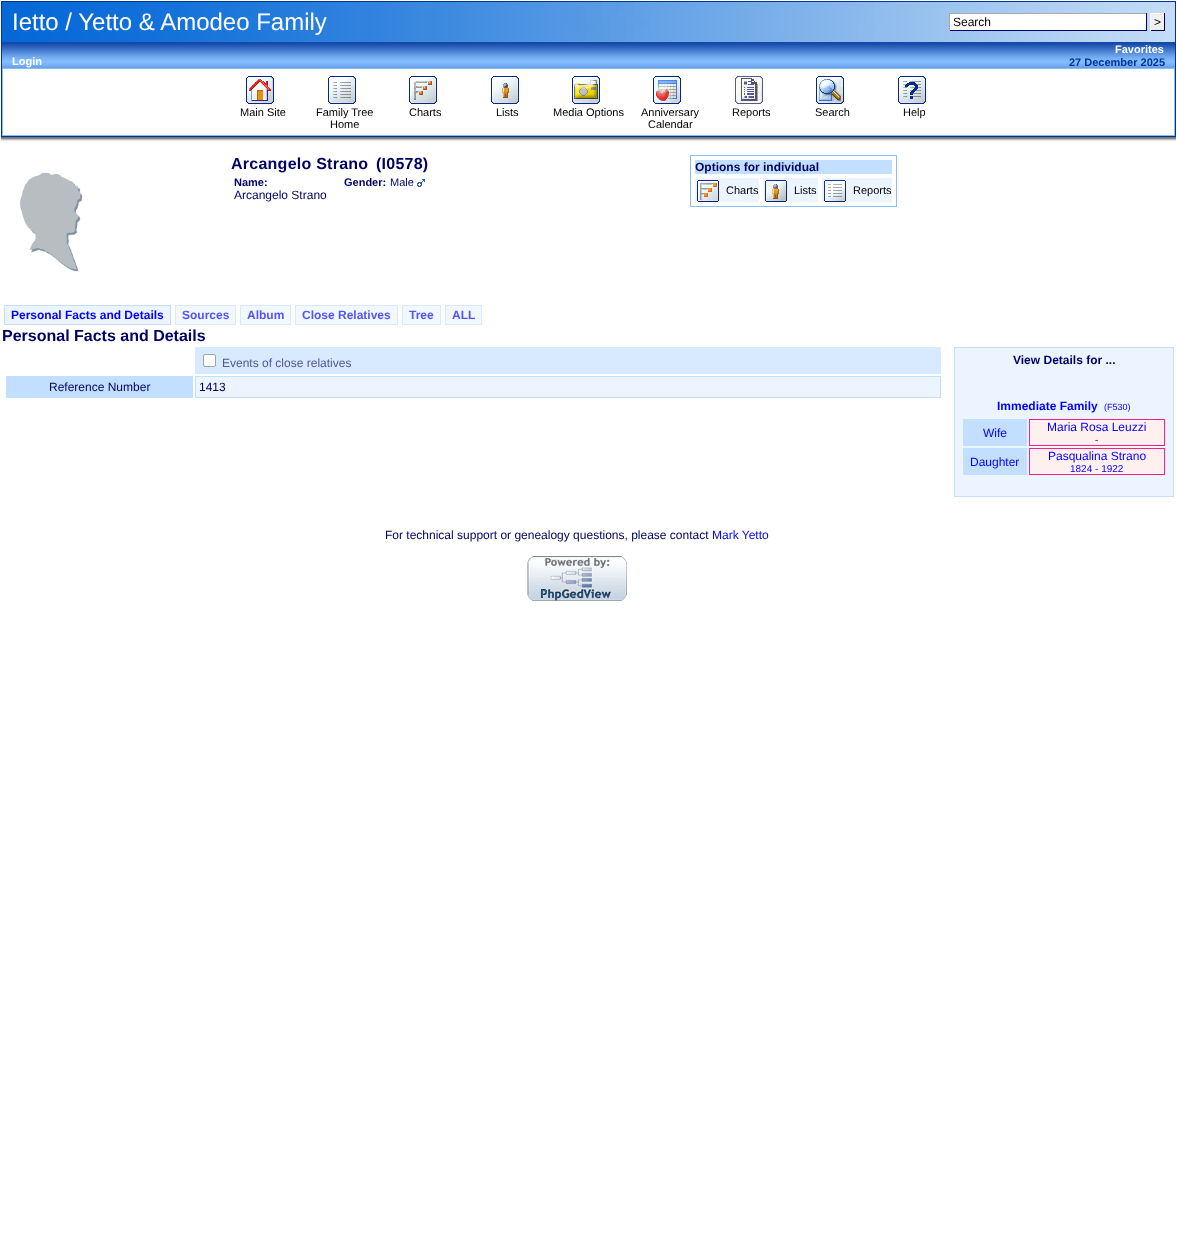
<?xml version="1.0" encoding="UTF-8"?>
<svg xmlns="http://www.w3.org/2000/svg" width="1177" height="1239">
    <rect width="100%" height="100%" fill="#FFFFFF"/>
    <rect x="1" y="1" width="1175" height="136" fill="#003399"/>
    <image x="2" y="2" width="1173" height="40" href="img_01.png"/>
    <text x="12" y="30" font-family="Liberation Sans" font-size="24" fill="#FFFFFF">Ietto / Yetto &amp; Amodeo Family</text>
    <rect x="950" y="14" width="196" height="16" fill="#FFFFFF"/>
    <rect x="949" y="13" width="198" height="1" fill="#AAAAAA"/>
    <rect x="1146" y="13" width="1" height="18" fill="#000066"/>
    <rect x="949" y="30" width="198" height="1" fill="#000066"/>
    <rect x="949" y="13" width="1" height="18" fill="#AAAAAA"/>
    <text x="953" y="26" font-family="Liberation Sans" font-size="12" fill="#000000">Search</text>
    <rect x="1151" y="14" width="13" height="16" fill="#EFEFEF"/>
    <rect x="1150" y="13" width="15" height="1" fill="#FFFFFF"/>
    <rect x="1164" y="13" width="1" height="18" fill="#000044"/>
    <rect x="1150" y="30" width="15" height="1" fill="#000044"/>
    <rect x="1150" y="13" width="1" height="18" fill="#FFFFFF"/>
    <text x="1154" y="26" font-family="Liberation Sans" font-size="12" fill="#000000">&gt;</text>
    <image x="2" y="42" width="1173" height="26" href="img_02.png"/>
    <text x="12" y="65" font-family="Liberation Sans" font-size="11" font-weight="700" fill="#FFFFFF">Login</text>
    <text x="1115" y="53" font-family="Liberation Sans" font-size="11" font-weight="700" fill="#FFFFFF">Favorites</text>
    <text x="1069" y="66" font-family="Liberation Sans" font-size="11" font-weight="700" fill="#003399">27 December 2025</text>
    <rect x="2.5" y="68.5" width="1172" height="67" fill="#FFFFFF" stroke="#84BEFF"/>
    <image x="246" y="76" width="28" height="28" href="img_03.png"/>
    <text x="240" y="116" font-family="Liberation Sans" font-size="11" fill="#000000">Main Site</text>
    <image x="328" y="76" width="28" height="28" href="img_04.png"/>
    <text x="316" y="116" font-family="Liberation Sans" font-size="11" fill="#000000">Family Tree</text>
    <text x="330" y="128" font-family="Liberation Sans" font-size="11" fill="#000000">Home</text>
    <image x="409" y="76" width="28" height="28" href="img_05.png"/>
    <text x="409" y="116" font-family="Liberation Sans" font-size="11" fill="#000000">Charts</text>
    <image x="491" y="76" width="28" height="28" href="img_06.png"/>
    <text x="496" y="116" font-family="Liberation Sans" font-size="11" fill="#000000">Lists</text>
    <image x="572" y="76" width="28" height="28" href="img_07.png"/>
    <text x="553" y="116" font-family="Liberation Sans" font-size="11" fill="#000000">Media Options</text>
    <image x="653" y="76" width="28" height="28" href="img_08.png"/>
    <text x="641" y="116" font-family="Liberation Sans" font-size="11" fill="#000000">Anniversary</text>
    <text x="648" y="128" font-family="Liberation Sans" font-size="11" fill="#000000">Calendar</text>
    <image x="735" y="76" width="28" height="28" href="img_09.png"/>
    <text x="732" y="116" font-family="Liberation Sans" font-size="11" fill="#000000">Reports</text>
    <image x="816" y="76" width="28" height="28" href="img_10.png"/>
    <text x="815" y="116" font-family="Liberation Sans" font-size="11" fill="#000000">Search</text>
    <image x="898" y="76" width="28" height="28" href="img_11.png"/>
    <text x="903" y="116" font-family="Liberation Sans" font-size="11" fill="#000000">Help</text>
    <image x="1" y="137" width="1175" height="4" href="img_12.png"/>
    <image x="19" y="172" width="64" height="100" href="img_13.png"/>
    <text x="231" y="169" font-family="Liberation Sans" font-size="16" font-weight="700" letter-spacing="0.25" fill="#000066">Arcangelo Strano</text>
    <text x="376" y="169" font-family="Liberation Sans" font-size="16" font-weight="700" letter-spacing="0.25" fill="#000066">(I0578)</text>
    <text x="234" y="186" font-family="Liberation Sans" font-size="11" font-weight="700" fill="#000066">Name:</text>
    <text x="234" y="199" font-family="Liberation Sans" font-size="12" fill="#000066">Arcangelo Strano</text>
    <text x="344" y="186" font-family="Liberation Sans" font-size="11" font-weight="700" fill="#000066">Gender:</text>
    <text x="390" y="186" font-family="Liberation Sans" font-size="11" fill="#000066">Male</text>
    <image x="417" y="179" width="8" height="8" href="img_14.png"/>
    <rect x="690.5" y="155.5" width="206" height="51" fill="none" stroke="#84BEFF"/>
    <rect x="695" y="160" width="197" height="14" fill="#C3DFFF"/>
    <text x="695" y="171" font-family="Liberation Sans" font-size="12" font-weight="700" fill="#000066">Options for individual</text>
    <rect x="695" y="178" width="64" height="24" fill="#ECF5FF"/>
    <image x="697" y="180" width="22" height="22" href="img_15.png"/>
    <text x="726" y="194" font-family="Liberation Sans" font-size="11" fill="#000000">Charts</text>
    <rect x="763" y="178" width="55" height="24" fill="#ECF5FF"/>
    <image x="765" y="180" width="22" height="22" href="img_16.png"/>
    <text x="794" y="194" font-family="Liberation Sans" font-size="11" fill="#000000">Lists</text>
    <rect x="822" y="178" width="70" height="24" fill="#ECF5FF"/>
    <image x="824" y="180" width="22" height="22" href="img_17.png"/>
    <text x="853" y="194" font-family="Liberation Sans" font-size="11" fill="#000000">Reports</text>
    <rect x="4.5" y="305.5" width="166" height="19" fill="#ECF5FF" stroke="#C3DFFF"/>
    <text x="11" y="319" font-family="Liberation Sans" font-size="12" font-weight="700" fill="#0000FF">Personal Facts and Details</text>
    <rect x="175.5" y="305.5" width="60" height="19" fill="#F2F8FF" stroke="#D7EAFF"/>
    <text x="182" y="319" font-family="Liberation Sans" font-size="12" font-weight="700" fill="#5454FF">Sources</text>
    <rect x="240.5" y="305.5" width="50" height="19" fill="#F2F8FF" stroke="#D7EAFF"/>
    <text x="247" y="319" font-family="Liberation Sans" font-size="12" font-weight="700" fill="#5454FF">Album</text>
    <rect x="295.5" y="305.5" width="102" height="19" fill="#F2F8FF" stroke="#D7EAFF"/>
    <text x="302" y="319" font-family="Liberation Sans" font-size="12" font-weight="700" fill="#5454FF">Close Relatives</text>
    <rect x="402.5" y="305.5" width="38" height="19" fill="#F2F8FF" stroke="#D7EAFF"/>
    <text x="409" y="319" font-family="Liberation Sans" font-size="12" font-weight="700" fill="#5454FF">Tree</text>
    <rect x="445.5" y="305.5" width="36" height="19" fill="#F2F8FF" stroke="#D7EAFF"/>
    <text x="452" y="319" font-family="Liberation Sans" font-size="12" font-weight="700" fill="#5454FF">ALL</text>
    <text x="2" y="341" font-family="Liberation Sans" font-size="16" font-weight="700" fill="#000066">Personal Facts and Details</text>
    <rect x="195" y="347" width="746" height="27" fill="#D7EAFF"/>
    <rect x="203.5" y="354.5" width="12" height="12" rx="1.5" fill="#FFFFFF" stroke="#A3A3A3"/>
    <text x="222" y="367" font-family="Liberation Sans" font-size="12" fill="#545498">Events of close relatives</text>
    <rect x="6" y="376" width="187" height="22" fill="#C3DFFF"/>
    <text x="49" y="391" font-family="Liberation Sans" font-size="12" fill="#000066">Reference Number</text>
    <rect x="195.5" y="376.5" width="745" height="21" fill="#ECF5FF" stroke="#C3DFFF"/>
    <text x="199" y="391" font-family="Liberation Sans" font-size="12" fill="#000066">1413</text>
    <rect x="954.5" y="347.5" width="219" height="149" fill="#ECF5FF" stroke="#C3DFFF"/>
    <text x="1013" y="364" font-family="Liberation Sans" font-size="12" font-weight="700" fill="#000066">View Details for ...</text>
    <text x="997" y="410" font-family="Liberation Sans" font-size="12" font-weight="700" fill="#0000FF">Immediate Family</text>
    <text x="1104" y="410" font-family="Liberation Sans" font-size="9" fill="#0000FF">(F530)</text>
    <rect x="963" y="419" width="64" height="27" fill="#C3DFFF"/>
    <text x="983" y="437" font-family="Liberation Sans" font-size="12" fill="#0000FF">Wife</text>
    <rect x="1029.5" y="419.5" width="135" height="26" fill="#FFF0F0" stroke="#FF2080"/>
    <text x="1047" y="431" font-family="Liberation Sans" font-size="12" fill="#0000FF">Maria Rosa Leuzzi</text>
    <text x="1095" y="443" font-family="Liberation Sans" font-size="10" fill="#0000FF">-</text>
    <rect x="963" y="448" width="64" height="27" fill="#C3DFFF"/>
    <text x="970" y="466" font-family="Liberation Sans" font-size="12" fill="#0000FF">Daughter</text>
    <rect x="1029.5" y="448.5" width="135" height="26" fill="#FFF0F0" stroke="#FF2080"/>
    <text x="1048" y="460" font-family="Liberation Sans" font-size="12" fill="#0000FF">Pasqualina Strano</text>
    <text x="1070" y="472" font-family="Liberation Sans" font-size="10" fill="#0000FF">1824 - 1922</text>
    <text x="385" y="539" font-family="Liberation Sans" font-size="12" fill="#000066">For technical support or genealogy questions, please contact</text>
    <text x="712" y="539" font-family="Liberation Sans" font-size="12" fill="#0000FF">Mark Yetto</text>
    <image x="527" y="556" width="100" height="45" href="img_18.png"/>
</svg>
